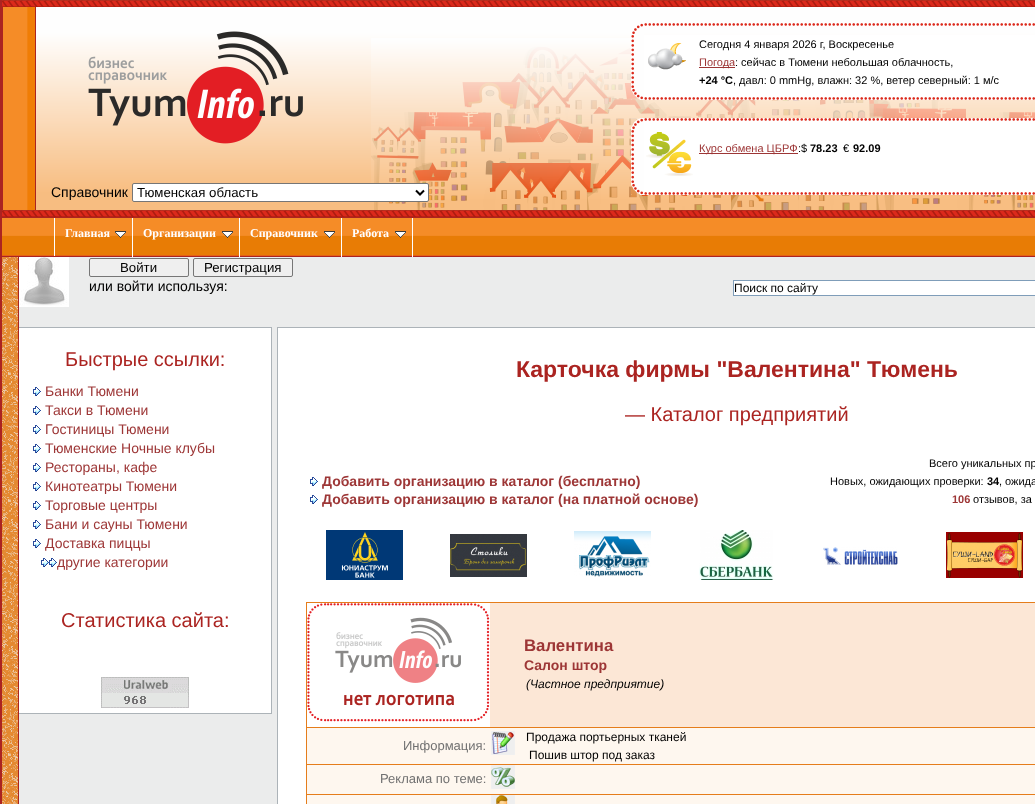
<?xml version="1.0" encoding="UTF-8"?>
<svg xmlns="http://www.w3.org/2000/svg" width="1035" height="804">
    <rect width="100%" height="100%" fill="#AB2421"/>
    <image x="36" y="7" width="999" height="203" href="img_01.png"/>
    <image x="2" y="0" width="1033" height="7" href="img_02.png"/>
    <image x="3" y="7" width="32" height="203" href="img_03.png"/>
    <image x="371" y="38" width="664" height="172" href="img_04.png"/>
    <image x="631" y="23" width="13" height="77" href="img_05.png"/>
    <image x="644" y="23" width="391" height="3" href="img_06.png"/>
    <rect x="644" y="35" width="391" height="62" fill="#FFFFFF"/>
    <image x="648" y="43" width="38" height="27" href="img_07.png"/>
    <text x="699" y="48" font-family="Liberation Sans" font-size="11" fill="#000000">Сегодня 4 января 2026 г, Воскресенье</text>
    <rect x="699" y="67" width="36" height="1" fill="#9D3636"/>
    <text x="699" y="66" font-family="Liberation Sans" font-size="11" fill="#9D3636">Погода</text>
    <text x="735" y="66" font-family="Liberation Sans" font-size="11" fill="#000000">: сейчас в Тюмени небольшая облачность,</text>
    <text x="699" y="84" font-family="Liberation Sans" font-size="11" font-weight="700" fill="#000000">+24 °C</text>
    <text x="733" y="84" font-family="Liberation Sans" font-size="11" fill="#000000">, давл: 0 mmHg, влажн: 32 %, ветер северный: 1 м/с</text>
    <image x="644" y="97" width="391" height="3" href="img_06.png"/>
    <image x="631" y="118" width="13" height="77" href="img_08.png"/>
    <image x="644" y="118" width="391" height="3" href="img_06.png"/>
    <rect x="644" y="121" width="391" height="71" fill="#FFFFFF"/>
    <image x="646" y="132" width="47" height="44" href="img_09.png"/>
    <rect x="699" y="153" width="99" height="1" fill="#9D3636"/>
    <text x="699" y="152" font-family="Liberation Sans" font-size="11" fill="#9D3636">Курс обмена ЦБРФ</text>
    <text x="798" y="152" font-family="Liberation Sans" font-size="11" fill="#000000">:$</text>
    <text x="810" y="152" font-family="Liberation Sans" font-size="11" font-weight="700" fill="#000000">78.23</text>
    <text x="843" y="152" font-family="Liberation Sans" font-size="11" fill="#000000">€</text>
    <text x="853" y="152" font-family="Liberation Sans" font-size="11" font-weight="700" fill="#000000">92.09</text>
    <image x="644" y="192" width="391" height="3" href="img_06.png"/>
    <image x="88" y="31" width="215" height="113" href="img_10.png"/>
    <text x="51" y="197" font-family="Liberation Sans" font-size="14" fill="#000000">Справочник</text>
    <rect x="132.5" y="183.5" width="296" height="18" rx="1.5" fill="#FFFFFF" stroke="#767676"/>
    <path d="M 416 190.5 L 420 194.5 L 424 190.5" fill="none" stroke="#000000" stroke-width="2"/>
    <text x="137" y="197" font-family="Liberation Sans" font-size="13.25" fill="#000000">Тюменская область</text>
    <image x="2" y="210" width="1033" height="7" href="img_02.png"/>
    <image x="2" y="218" width="1033" height="38" href="img_11.png"/>
    <rect x="54" y="218" width="1" height="38" fill="#FFFFFF"/>
    <rect x="132" y="218" width="1" height="39" fill="#FFFFFF"/>
    <text x="65" y="237" font-family="Liberation Serif" font-size="12" font-weight="700" fill="#FFFFFF">Главная</text>
    <image x="115" y="231" width="11" height="7" href="img_12.png"/>
    <rect x="239" y="218" width="1" height="39" fill="#FFFFFF"/>
    <text x="143" y="237" font-family="Liberation Serif" font-size="12" font-weight="700" fill="#FFFFFF">Организации</text>
    <image x="222" y="231" width="11" height="7" href="img_12.png"/>
    <rect x="341" y="218" width="1" height="39" fill="#FFFFFF"/>
    <text x="250" y="237" font-family="Liberation Serif" font-size="12" font-weight="700" fill="#FFFFFF">Справочник</text>
    <image x="324" y="231" width="11" height="7" href="img_12.png"/>
    <rect x="412" y="218" width="1" height="39" fill="#FFFFFF"/>
    <text x="352" y="237" font-family="Liberation Serif" font-size="12" font-weight="700" fill="#FFFFFF">Работа</text>
    <image x="395" y="231" width="11" height="7" href="img_12.png"/>
    <image x="2" y="257" width="16" height="547" href="img_13.png"/>
    <rect x="19" y="257" width="1016" height="547" fill="#EBECEC"/>
    <image x="19" y="257" width="50" height="50" href="img_14.png"/>
    <rect x="89.5" y="258.5" width="99" height="18" rx="1.5" fill="#EFEFEF" stroke="#767676"/>
    <text x="120" y="272" font-family="Liberation Sans" font-size="13.25" fill="#000000">Войти</text>
    <rect x="193.5" y="258.5" width="99" height="18" rx="1.5" fill="#EFEFEF" stroke="#767676"/>
    <text x="204" y="272" font-family="Liberation Sans" font-size="13.25" fill="#000000">Регистрация</text>
    <text x="89" y="291" font-family="Liberation Sans" font-size="14" fill="#000000">или войти используя:</text>
    <rect x="733.5" y="280.5" width="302" height="15" fill="#FFFFFF" stroke="#7F9DB9"/>
    <text x="734" y="292" font-family="Liberation Sans" font-size="12" fill="#000000">Поиск по сайту</text>
    <rect x="19" y="328" width="252" height="385" fill="#FFFFFF"/>
    <rect x="19" y="327" width="253" height="1" fill="#ACB3B8"/>
    <rect x="271" y="327" width="1" height="387" fill="#ACB3B8"/>
    <rect x="19" y="713" width="253" height="1" fill="#ACB3B8"/>
    <text x="65" y="366" font-family="Liberation Sans" font-size="20" fill="#AB2421">Быстрые ссылки:</text>
    <image x="33" y="387" width="8" height="9" href="img_15.png"/>
    <text x="45" y="396" font-family="Liberation Sans" font-size="14" fill="#9D3636">Банки Тюмени</text>
    <image x="33" y="406" width="8" height="9" href="img_15.png"/>
    <text x="45" y="415" font-family="Liberation Sans" font-size="14" fill="#9D3636">Такси в Тюмени</text>
    <image x="33" y="425" width="8" height="9" href="img_15.png"/>
    <text x="45" y="434" font-family="Liberation Sans" font-size="14" fill="#9D3636">Гостиницы Тюмени</text>
    <image x="33" y="444" width="8" height="9" href="img_15.png"/>
    <text x="45" y="453" font-family="Liberation Sans" font-size="14" fill="#9D3636">Тюменcкие Ночные клубы</text>
    <image x="33" y="463" width="8" height="9" href="img_15.png"/>
    <text x="45" y="472" font-family="Liberation Sans" font-size="14" fill="#9D3636">Рестораны, кафе</text>
    <image x="33" y="482" width="8" height="9" href="img_15.png"/>
    <text x="45" y="491" font-family="Liberation Sans" font-size="14" fill="#9D3636">Кинотеатры Тюмени</text>
    <image x="33" y="501" width="8" height="9" href="img_15.png"/>
    <text x="45" y="510" font-family="Liberation Sans" font-size="14" fill="#9D3636">Торговые центры</text>
    <image x="33" y="520" width="8" height="9" href="img_15.png"/>
    <text x="45" y="529" font-family="Liberation Sans" font-size="14" fill="#9D3636">Бани и сауны Тюмени</text>
    <image x="33" y="539" width="8" height="9" href="img_15.png"/>
    <text x="45" y="548" font-family="Liberation Sans" font-size="14" fill="#9D3636">Доставка пиццы</text>
    <image x="41" y="558" width="8" height="9" href="img_15.png"/>
    <image x="49" y="558" width="8" height="9" href="img_15.png"/>
    <text x="57" y="567" font-family="Liberation Sans" font-size="14" fill="#9D3636">другие категории</text>
    <text x="61" y="627" font-family="Liberation Sans" font-size="20" fill="#AB2421">Статистика сайта:</text>
    <image x="101" y="677" width="88" height="31" href="img_16.png"/>
    <rect x="278" y="328" width="757" height="476" fill="#FFFFFF"/>
    <rect x="277" y="327" width="758" height="1" fill="#ACB3B8"/>
    <rect x="277" y="327" width="1" height="477" fill="#ACB3B8"/>
    <text x="516" y="377" font-family="Liberation Sans" font-size="23" font-weight="700" fill="#AB2421">Карточка фирмы "Валентина" Тюмень</text>
    <text x="625" y="421" font-family="Liberation Sans" font-size="20" fill="#AB2421">— Каталог предприятий</text>
    <image x="310" y="477" width="8" height="9" href="img_15.png"/>
    <text x="322" y="486" font-family="Liberation Sans" font-size="14" font-weight="700" fill="#9D3636">Добавить организацию в каталог (бесплатно)</text>
    <image x="310" y="495" width="8" height="9" href="img_15.png"/>
    <text x="322" y="504" font-family="Liberation Sans" font-size="14" font-weight="700" fill="#9D3636">Добавить организацию в каталог (на платной основе)</text>
    <text x="929" y="467" font-family="Liberation Sans" font-size="11" fill="#000000">Всего уникальных пр</text>
    <text x="830" y="485" font-family="Liberation Sans" font-size="11" fill="#000000">Новых, ожидающих проверки:</text>
    <text x="987" y="485" font-family="Liberation Sans" font-size="11" font-weight="700" fill="#000000">34</text>
    <text x="999" y="485" font-family="Liberation Sans" font-size="11" fill="#000000">, ожида</text>
    <text x="952" y="503" font-family="Liberation Sans" font-size="11" font-weight="700" fill="#9D3636">106</text>
    <text x="973" y="503" font-family="Liberation Sans" font-size="11" fill="#000000">отзывов, за</text>
    <image x="326" y="530" width="77" height="50" href="img_17.png"/>
    <image x="450" y="534" width="77" height="43" href="img_18.png"/>
    <image x="574" y="531" width="77" height="46" href="img_19.png"/>
    <image x="699" y="530" width="75" height="50" href="img_20.png"/>
    <image x="823" y="547" width="75" height="18" href="img_21.png"/>
    <image x="946" y="532" width="77" height="46" href="img_22.png"/>
    <rect x="306" y="602" width="729" height="202" fill="#E57D1B"/>
    <rect x="490" y="603" width="545" height="124" fill="#FCE7D6"/>
    <rect x="307" y="603" width="183" height="124" fill="#FFFFFF"/>
    <image x="307" y="603" width="183" height="119" href="img_23.png"/>
    <text x="524" y="651" font-family="Liberation Sans" font-size="16.75" font-weight="700" fill="#9D3636">Валентина</text>
    <text x="524" y="670" font-family="Liberation Sans" font-size="14" font-weight="700" fill="#9D3636">Салон штор</text>
    <text x="526" y="688" font-family="Liberation Sans" font-size="12" font-style="italic" fill="#000000">(Частное предприятие)</text>
    <rect x="307" y="728" width="728" height="36" fill="#FEF7EF"/>
    <text x="403" y="750" font-family="Liberation Sans" font-size="13" fill="#717171">Информация:</text>
    <image x="491" y="731" width="24" height="24" href="img_24.png"/>
    <text x="526" y="741" font-family="Liberation Sans" font-size="12" fill="#000000">Продажа портьерных тканей</text>
    <text x="529" y="759" font-family="Liberation Sans" font-size="12" fill="#000000">Пошив штор под заказ</text>
    <rect x="307" y="765" width="728" height="29" fill="#FEF7EF"/>
    <text x="380" y="783" font-family="Liberation Sans" font-size="13" fill="#717171">Реклама по теме:</text>
    <image x="491" y="765" width="24" height="24" href="img_25.png"/>
    <rect x="307" y="795" width="728" height="9" fill="#FEF7EF"/>
    <image x="491" y="795" width="24" height="9" href="img_26.png"/>
</svg>
